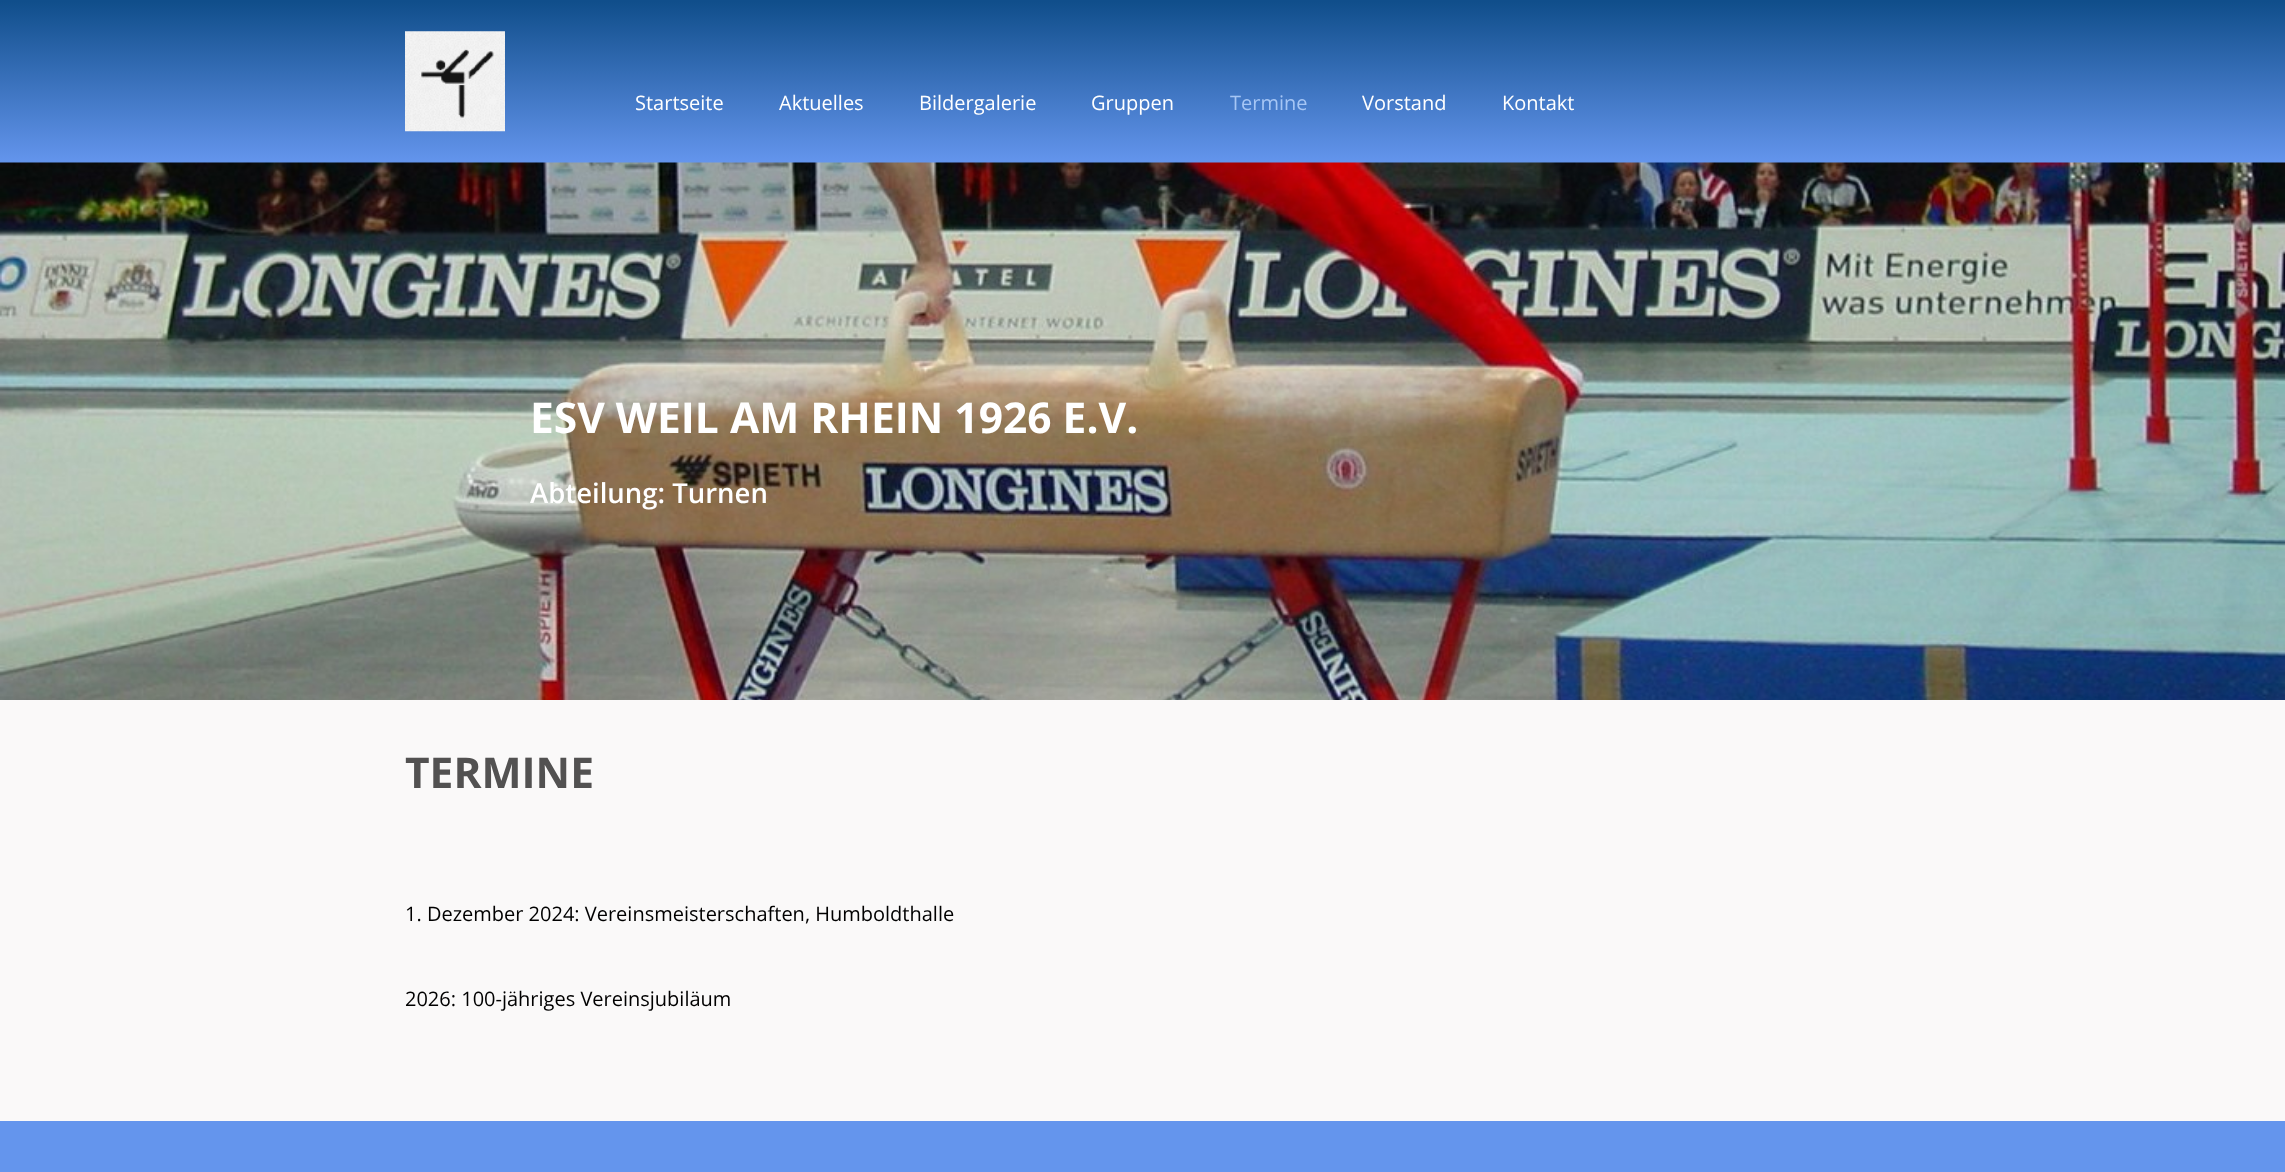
<?xml version="1.0" encoding="UTF-8"?>
<svg xmlns="http://www.w3.org/2000/svg" width="2285" height="1172">
    <defs>
        <linearGradient id="g1" gradientUnits="userSpaceOnUse" x1="1143" y1="163" x2="1143" y2="0"><stop offset="0" stop-color="#6495ED"/><stop offset="0" stop-color="#6495ED"/><stop offset="0.99" stop-color="#104E8B"/><stop offset="1" stop-color="#104E8B"/></linearGradient>
    </defs>
    <rect width="100%" height="100%" fill="#FAF9F9"/>
    <rect x="0" y="0" width="2285" height="163" fill="url(#g1)"/>
    <image x="0" y="162" width="2285" height="538" href="img_01.png"/>
    <image x="405" y="31" width="100" height="101" href="img_02.png"/>
    <text x="635" y="110" font-family="Open Sans" font-size="20" fill="#FFFFFF">Startseite</text>
    <text x="779" y="110" font-family="Open Sans" font-size="20" fill="#FFFFFF">Aktuelles</text>
    <text x="919" y="110" font-family="Open Sans" font-size="20" fill="#FFFFFF">Bildergalerie</text>
    <text x="1091" y="110" font-family="Open Sans" font-size="20" fill="#FFFFFF">Gruppen</text>
    <text x="1230" y="110" font-family="Open Sans" font-size="20" fill="#A6C6F5">Termine</text>
    <text x="1362" y="110" font-family="Open Sans" font-size="20" fill="#FFFFFF">Vorstand</text>
    <text x="1502" y="110" font-family="Open Sans" font-size="20" fill="#FFFFFF">Kontakt</text>
    <text x="530" y="433" font-family="Open Sans" font-size="42.5" font-weight="700" fill="#FFFFFF">ESV WEIL AM RHEIN 1926 E.V.</text>
    <text x="530" y="503" font-family="Open Sans" font-size="27.5" font-weight="600" fill="#FFFFFF">Abteilung: Turnen</text>
    <text x="405" y="788" font-family="Open Sans" font-size="42.5" font-weight="700" fill="#525151">TERMINE</text>
    <text x="405" y="921" font-family="Open Sans" font-size="20" fill="#000000">1. Dezember 2024: Vereinsmeisterschaften, Humboldthalle</text>
    <text x="405" y="1006" font-family="Open Sans" font-size="20" fill="#000000">2026: 100-jähriges Vereinsjubiläum</text>
    <rect x="0" y="1121" width="2285" height="51" fill="#6495ED"/>
</svg>
